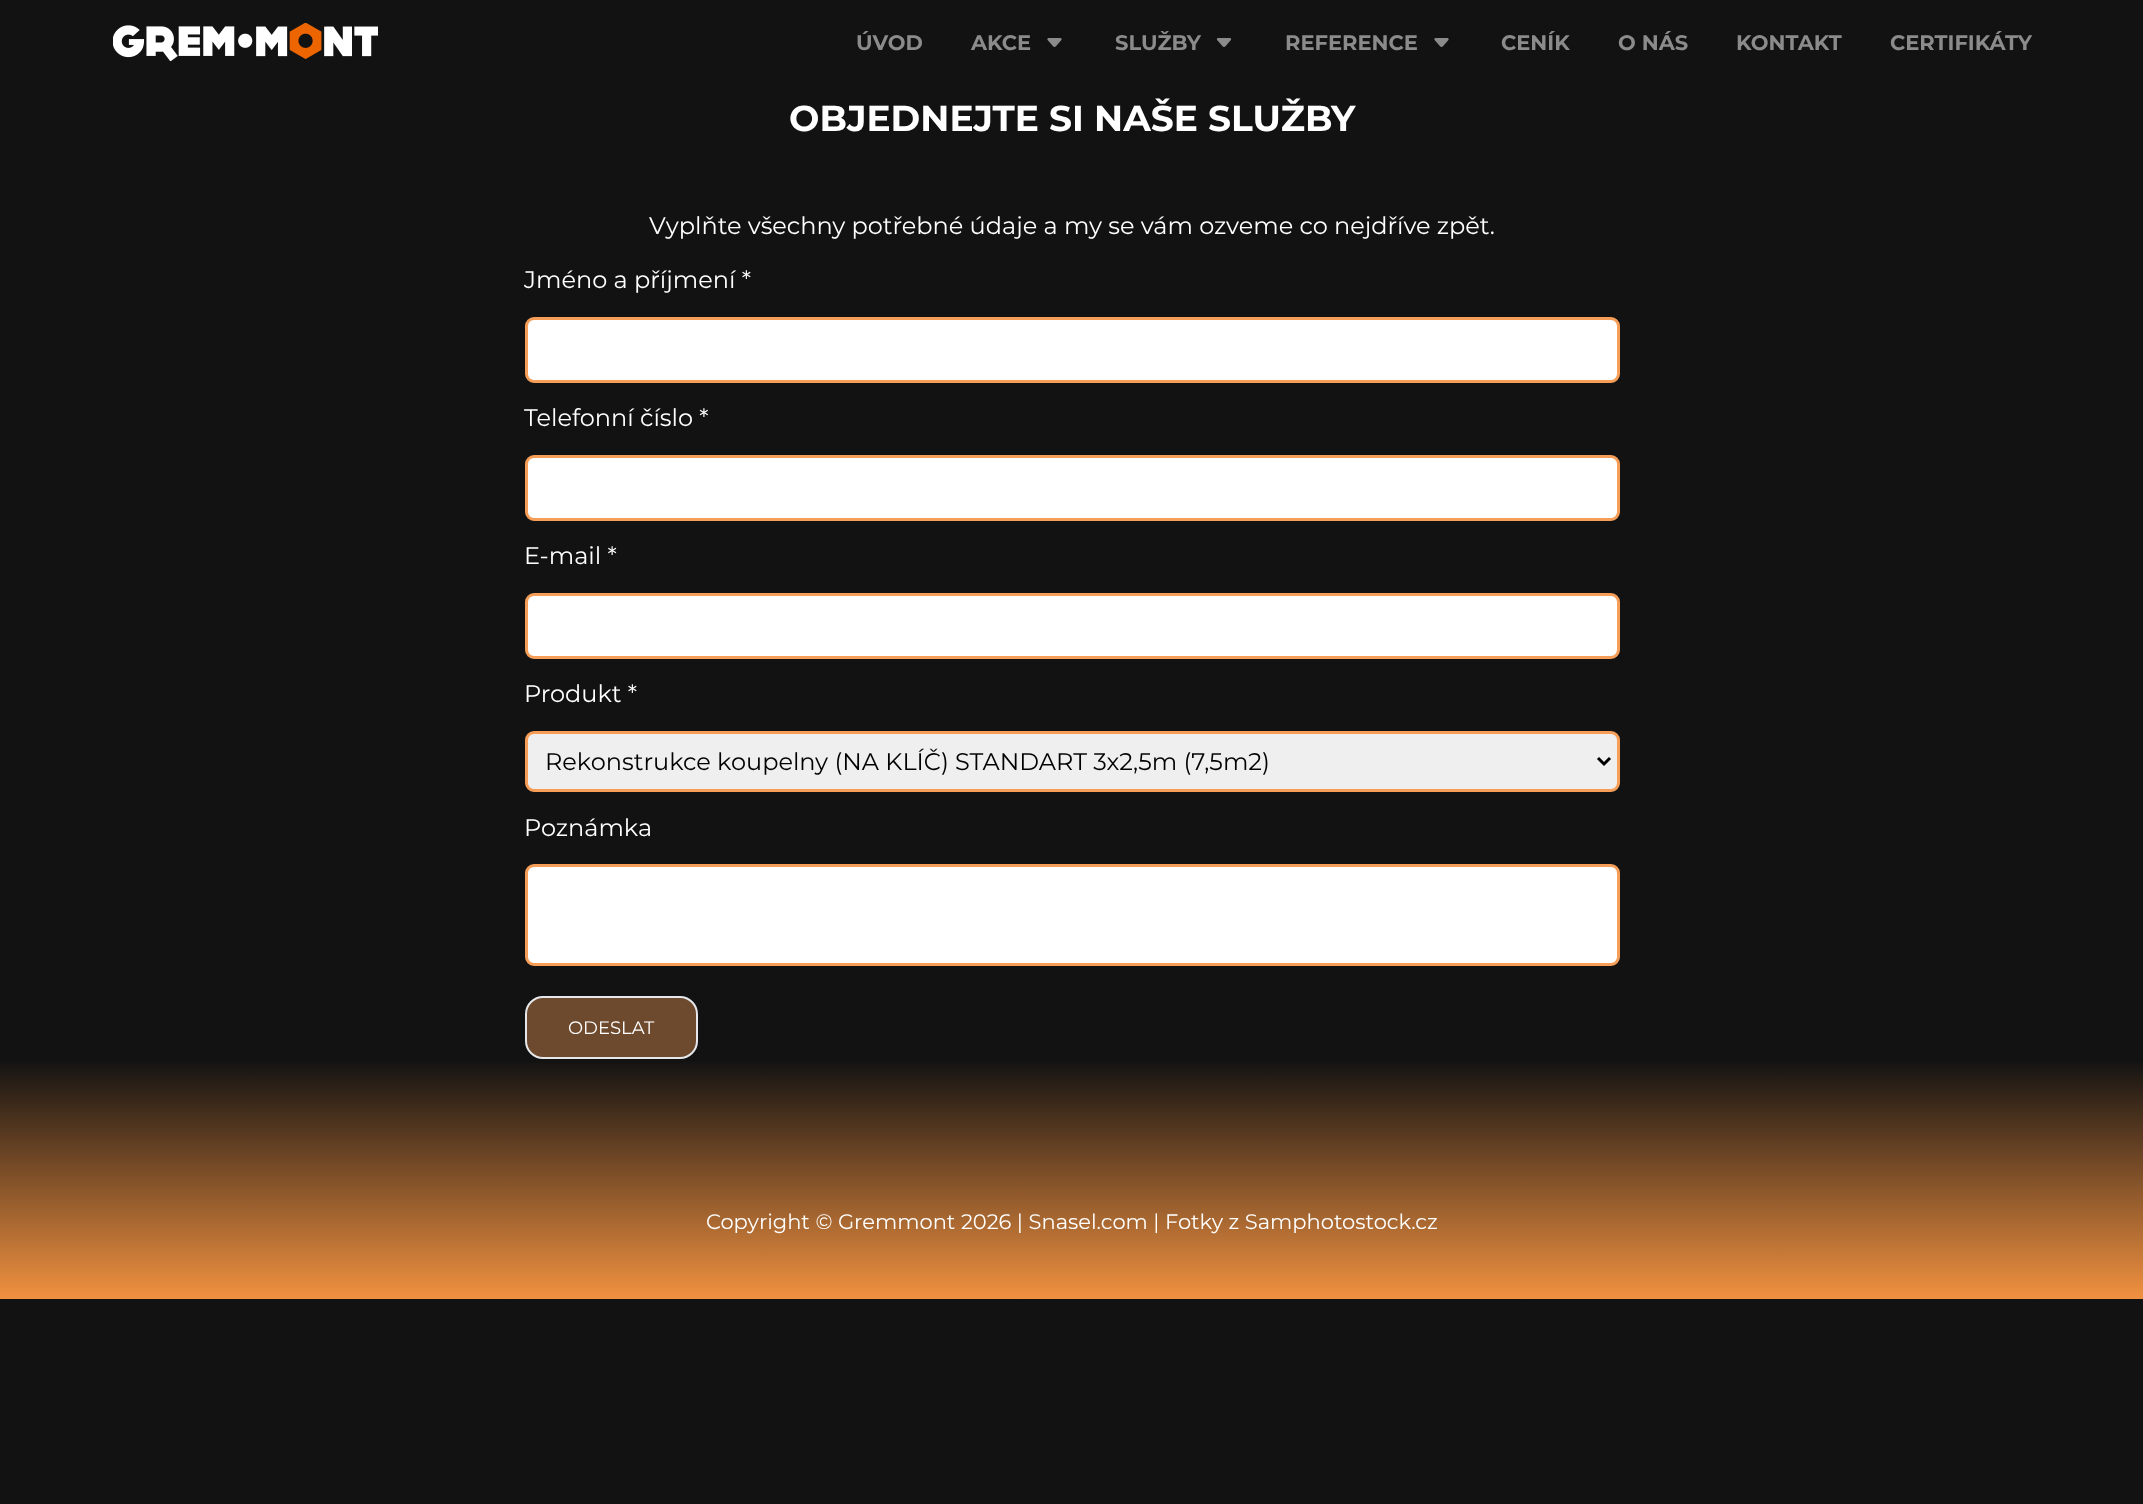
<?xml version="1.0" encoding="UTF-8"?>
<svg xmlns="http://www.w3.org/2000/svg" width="2143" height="1504">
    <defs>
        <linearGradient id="g1" gradientUnits="userSpaceOnUse" x1="1072" y1="1059" x2="1072" y2="1299"><stop offset="0" stop-color="#121212"/><stop offset="1" stop-color="#F19140"/></linearGradient>
    </defs>
    <rect width="100%" height="100%" fill="#121212"/>
    <image x="113" y="23" width="265" height="38" href="img_01.png"/>
    <text x="856" y="50" font-family="Montserrat" font-size="21" font-weight="700" fill="#8B8B8B">ÚVOD</text>
    <text x="971" y="50" font-family="Montserrat" font-size="21" font-weight="700" fill="#8B8B8B">AKCE</text>
    <image x="1047" y="38" width="15" height="9" href="img_02.png"/>
    <text x="1115" y="50" font-family="Montserrat" font-size="21" font-weight="700" fill="#8B8B8B">SLUŽBY</text>
    <image x="1216" y="38" width="16" height="9" href="img_03.png"/>
    <text x="1285" y="50" font-family="Montserrat" font-size="21" font-weight="700" fill="#8B8B8B">REFERENCE</text>
    <image x="1434" y="38" width="15" height="9" href="img_02.png"/>
    <text x="1501" y="50" font-family="Montserrat" font-size="21" font-weight="700" fill="#8B8B8B">CENÍK</text>
    <text x="1618" y="50" font-family="Montserrat" font-size="21" font-weight="700" fill="#8B8B8B">O NÁS</text>
    <text x="1736" y="50" font-family="Montserrat" font-size="21" font-weight="700" fill="#8B8B8B">KONTAKT</text>
    <text x="1890" y="50" font-family="Montserrat" font-size="21" font-weight="700" fill="#8B8B8B">CERTIFIKÁTY</text>
    <text x="789" y="131" font-family="Montserrat" font-size="36" font-weight="700" fill="#FFFFFF">OBJEDNEJTE SI NAŠE SLUŽBY</text>
    <text x="649" y="234" font-family="Montserrat" font-size="24" fill="#FFFFFF">Vyplňte všechny potřebné údaje a my se vám ozveme co nejdříve zpět.</text>
    <text x="524" y="288" font-family="Montserrat" font-size="24" fill="#FFFFFF">Jméno a příjmení *</text>
    <rect x="526.5" y="318.5" width="1092" height="63" rx="7.5" fill="#FFFFFF" stroke="#F69E57" stroke-width="3"/>
    <text x="524" y="426" font-family="Montserrat" font-size="24" fill="#FFFFFF">Telefonní číslo *</text>
    <rect x="526.5" y="456.5" width="1092" height="63" rx="7.5" fill="#FFFFFF" stroke="#F69E57" stroke-width="3"/>
    <text x="524" y="564" font-family="Montserrat" font-size="24" fill="#FFFFFF">E-mail *</text>
    <rect x="526.5" y="594.5" width="1092" height="63" rx="7.5" fill="#FFFFFF" stroke="#F69E57" stroke-width="3"/>
    <text x="524" y="702" font-family="Montserrat" font-size="24" fill="#FFFFFF">Produkt *</text>
    <rect x="526.5" y="732.5" width="1092" height="58" rx="7.5" fill="#EFEFEF" stroke="#F69E57" stroke-width="3"/>
    <path d="M 1598 758 L 1604 764 L 1610 758" fill="none" stroke="#000000" stroke-width="3"/>
    <text x="545" y="770" font-family="Montserrat" font-size="24" fill="#000000">Rekonstrukce koupelny (NA KLÍČ) STANDART 3x2,5m (7,5m2)</text>
    <text x="524" y="836" font-family="Montserrat" font-size="24" fill="#FFFFFF">Poznámka</text>
    <rect x="526.5" y="865.5" width="1092" height="99" rx="7.5" fill="#FFFFFF" stroke="#F69E57" stroke-width="3"/>
    <rect x="526" y="997" width="171" height="61" rx="17" fill="#6D4A2E" stroke="#E5E7EB" stroke-width="2"/>
    <text x="568" y="1034" font-family="Montserrat" font-size="18" fill="#FFFFFF">ODESLAT</text>
    <rect x="0" y="1062" width="2143" height="237" fill="url(#g1)"/>
    <text x="706" y="1229" font-family="Montserrat" font-size="21" fill="#FFFFFF">Copyright © Gremmont 2026 | Snasel.com | Fotky z Samphotostock.cz</text>
</svg>
